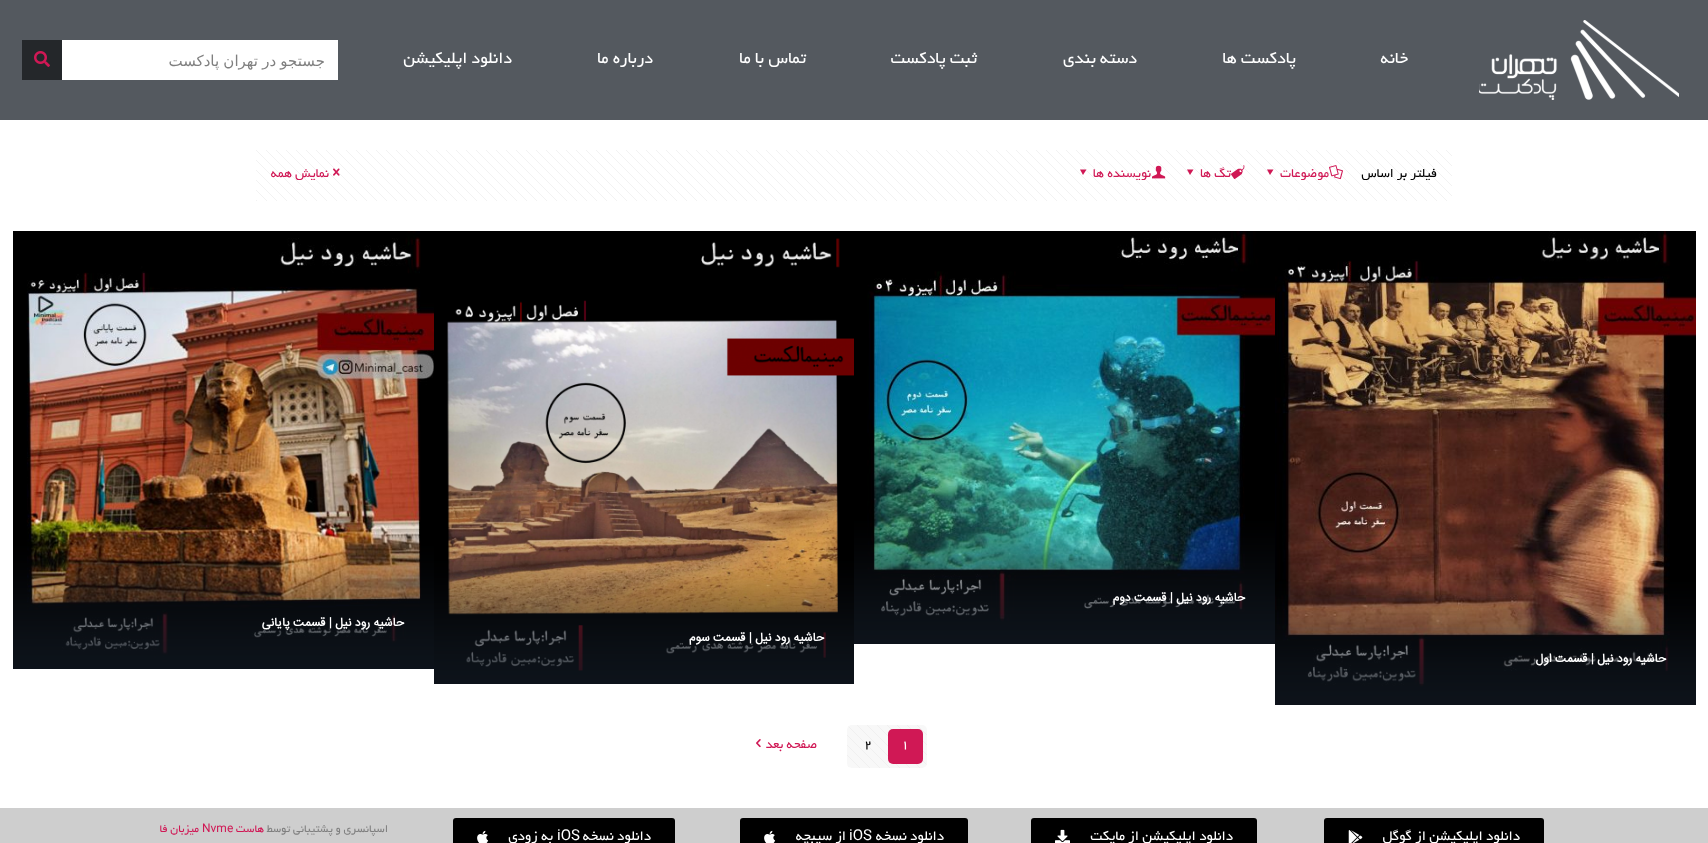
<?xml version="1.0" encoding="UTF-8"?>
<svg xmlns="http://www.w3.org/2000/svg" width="1708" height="843">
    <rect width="100%" height="100%" fill="#FFFFFF"/>
    <rect x="0" y="0" width="1708" height="120" fill="#54595F"/>
    <image x="1479" y="20" width="200" height="80" href="img_01.png"/>
    <text x="1408" y="63" font-family="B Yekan" font-size="18" direction="rtl" fill="#FFFFFF">خانه</text>
    <text x="1296" y="63" font-family="B Yekan" font-size="18" direction="rtl" fill="#FFFFFF">پادکست ها</text>
    <text x="1137" y="63" font-family="B Yekan" font-size="18" direction="rtl" fill="#FFFFFF">دسته بندی</text>
    <text x="977" y="63" font-family="B Yekan" font-size="18" direction="rtl" fill="#FFFFFF">ثبت پادکست</text>
    <text x="806" y="63" font-family="B Yekan" font-size="18" direction="rtl" fill="#FFFFFF">تماس با ما</text>
    <text x="653" y="63" font-family="B Yekan" font-size="18" direction="rtl" fill="#FFFFFF">درباره ما</text>
    <text x="512" y="63" font-family="B Yekan" font-size="18" direction="rtl" fill="#FFFFFF">دانلود اپلیکیشن</text>
    <rect x="62" y="40" width="276" height="40" fill="#FFFFFF"/>
    <text x="325" y="66" word-spacing="-0.5" font-family="DejaVu Sans" font-size="15" direction="rtl" fill="#7F7F7F">جستجو در تهران پادکست</text>
    <rect x="22" y="40" width="40" height="40" fill="#24272A"/>
    <image x="34" y="51" width="16" height="16" href="img_02.png"/>
    <image x="256" y="150" width="1196" height="51" href="img_03.png"/>
    <text x="1437" y="177" font-family="B Yekan" font-size="14" direction="rtl" fill="#000000">فیلتر بر اساس</text>
    <image x="1329" y="165" width="14" height="15" href="img_04.png"/>
    <text x="1329" y="177" font-family="B Yekan" font-size="14" direction="rtl" fill="#D01855">موضوعات</text>
    <path d="M 1273.5 169.5 L 1270 175 L 1267 169.5 Z" fill="#D01855"/>
    <image x="1231" y="165" width="14" height="14" href="img_05.png"/>
    <text x="1231" y="177" font-family="B Yekan" font-size="14" direction="rtl" fill="#D01855">تگ ها</text>
    <path d="M 1193.5 169.5 L 1190 175 L 1187 169.5 Z" fill="#D01855"/>
    <image x="1152" y="165" width="14" height="14" href="img_06.png"/>
    <text x="1151" y="177" font-family="B Yekan" font-size="14" direction="rtl" fill="#D01855">نویسنده ها</text>
    <path d="M 1086.5 169.5 L 1083 175 L 1080 169.5 Z" fill="#D01855"/>
    <image x="333" y="168" width="7" height="8" href="img_07.png"/>
    <text x="329" y="177" font-family="B Yekan" font-size="14" direction="rtl" fill="#D01855">نمایش همه</text>
    <image x="854" y="231" width="421" height="413" href="img_08.png"/>
    <image x="854" y="521" width="421" height="123" href="img_09.png"/>
    <text x="1245" y="601" font-family="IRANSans" font-size="12" font-weight="700" direction="rtl" fill="#FFFFFF">حاشیه رود نیل | قسمت دوم</text>
    <image x="13" y="231" width="421" height="438" href="img_10.png"/>
    <image x="13" y="546" width="421" height="123" href="img_11.png"/>
    <text x="404" y="626" font-family="IRANSans" font-size="12" font-weight="700" direction="rtl" fill="#FFFFFF">حاشیه رود نیل | قسمت پایانی</text>
    <image x="434" y="231" width="420" height="453" href="img_12.png"/>
    <image x="434" y="561" width="420" height="123" href="img_13.png"/>
    <text x="824" y="641" font-family="IRANSans" font-size="12" font-weight="700" direction="rtl" fill="#FFFFFF">حاشیه رود نیل | قسمت سوم</text>
    <image x="1275" y="231" width="421" height="474" href="img_14.png"/>
    <image x="1275" y="582" width="421" height="123" href="img_15.png"/>
    <text x="1666" y="662" font-family="IRANSans" font-size="12" font-weight="700" direction="rtl" fill="#FFFFFF">حاشیه رود نیل | قسمت اول</text>
    <rect x="847" y="725" width="80" height="43" rx="5" fill="#F8F8F8"/>
    <image x="847" y="725" width="80" height="43" href="img_16.png"/>
    <rect x="888" y="729" width="35" height="35" rx="5" fill="#D01855"/>
    <text x="901" y="748" font-family="B Yekan" font-size="14" fill="#FFFFFF">1</text>
    <text x="864" y="748" font-family="B Yekan" font-size="14" fill="#000000">2</text>
    <text x="817" y="748" font-family="B Yekan" font-size="14" direction="rtl" fill="#D01855">صفحه بعد</text>
    <image x="756" y="739" width="5" height="9" href="img_17.png"/>
    <rect x="0" y="808" width="1708" height="35" fill="#CECECE"/>
    <rect x="1324" y="818" width="220" height="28" rx="3" fill="#000000"/>
    <text x="1520" y="840" font-family="B Yekan" font-size="15" direction="rtl" fill="#FFFFFF">دانلود اپلیکیشن از گوگل</text>
    <image x="1348" y="830" width="15" height="13" href="img_18.png"/>
    <rect x="1031" y="818" width="226" height="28" rx="3" fill="#000000"/>
    <text x="1233" y="840" font-family="B Yekan" font-size="15" direction="rtl" fill="#FFFFFF">دانلود اپلیکیشن از مایکت</text>
    <image x="1055" y="829" width="15" height="14" href="img_19.png"/>
    <rect x="740" y="818" width="228" height="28" rx="3" fill="#000000"/>
    <text x="944" y="840" font-family="B Yekan" font-size="15" direction="rtl" fill="#FFFFFF">دانلود نسخه</text>
    <text x="849" y="840" font-family="Roboto" font-size="15" fill="#FFFFFF">iOS</text>
    <text x="846" y="840" font-family="B Yekan" font-size="15" direction="rtl" fill="#FFFFFF">از سیبچه</text>
    <image x="764" y="830" width="12" height="13" href="img_20.png"/>
    <rect x="453" y="818" width="222" height="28" rx="3" fill="#000000"/>
    <text x="651" y="840" font-family="B Yekan" font-size="15" direction="rtl" fill="#FFFFFF">دانلود نسخه</text>
    <text x="557" y="840" font-family="Roboto" font-size="15" fill="#FFFFFF">iOS</text>
    <text x="553" y="840" font-family="B Yekan" font-size="15" direction="rtl" fill="#FFFFFF">به زودی</text>
    <image x="477" y="830" width="12" height="13" href="img_20.png"/>
    <text x="388" y="832" font-family="B Yekan" font-size="12" direction="rtl" fill="#7F7F7F">اسپانسری و پشتیبانی توسط</text>
    <text x="264" y="832" font-family="B Yekan" font-size="12" direction="rtl" fill="#D01855">هاست</text>
    <text x="202" y="832" font-family="Roboto" font-size="12" fill="#D01855">Nvme</text>
    <text x="199" y="832" font-family="B Yekan" font-size="12" direction="rtl" fill="#D01855">میزبان فا</text>
</svg>
